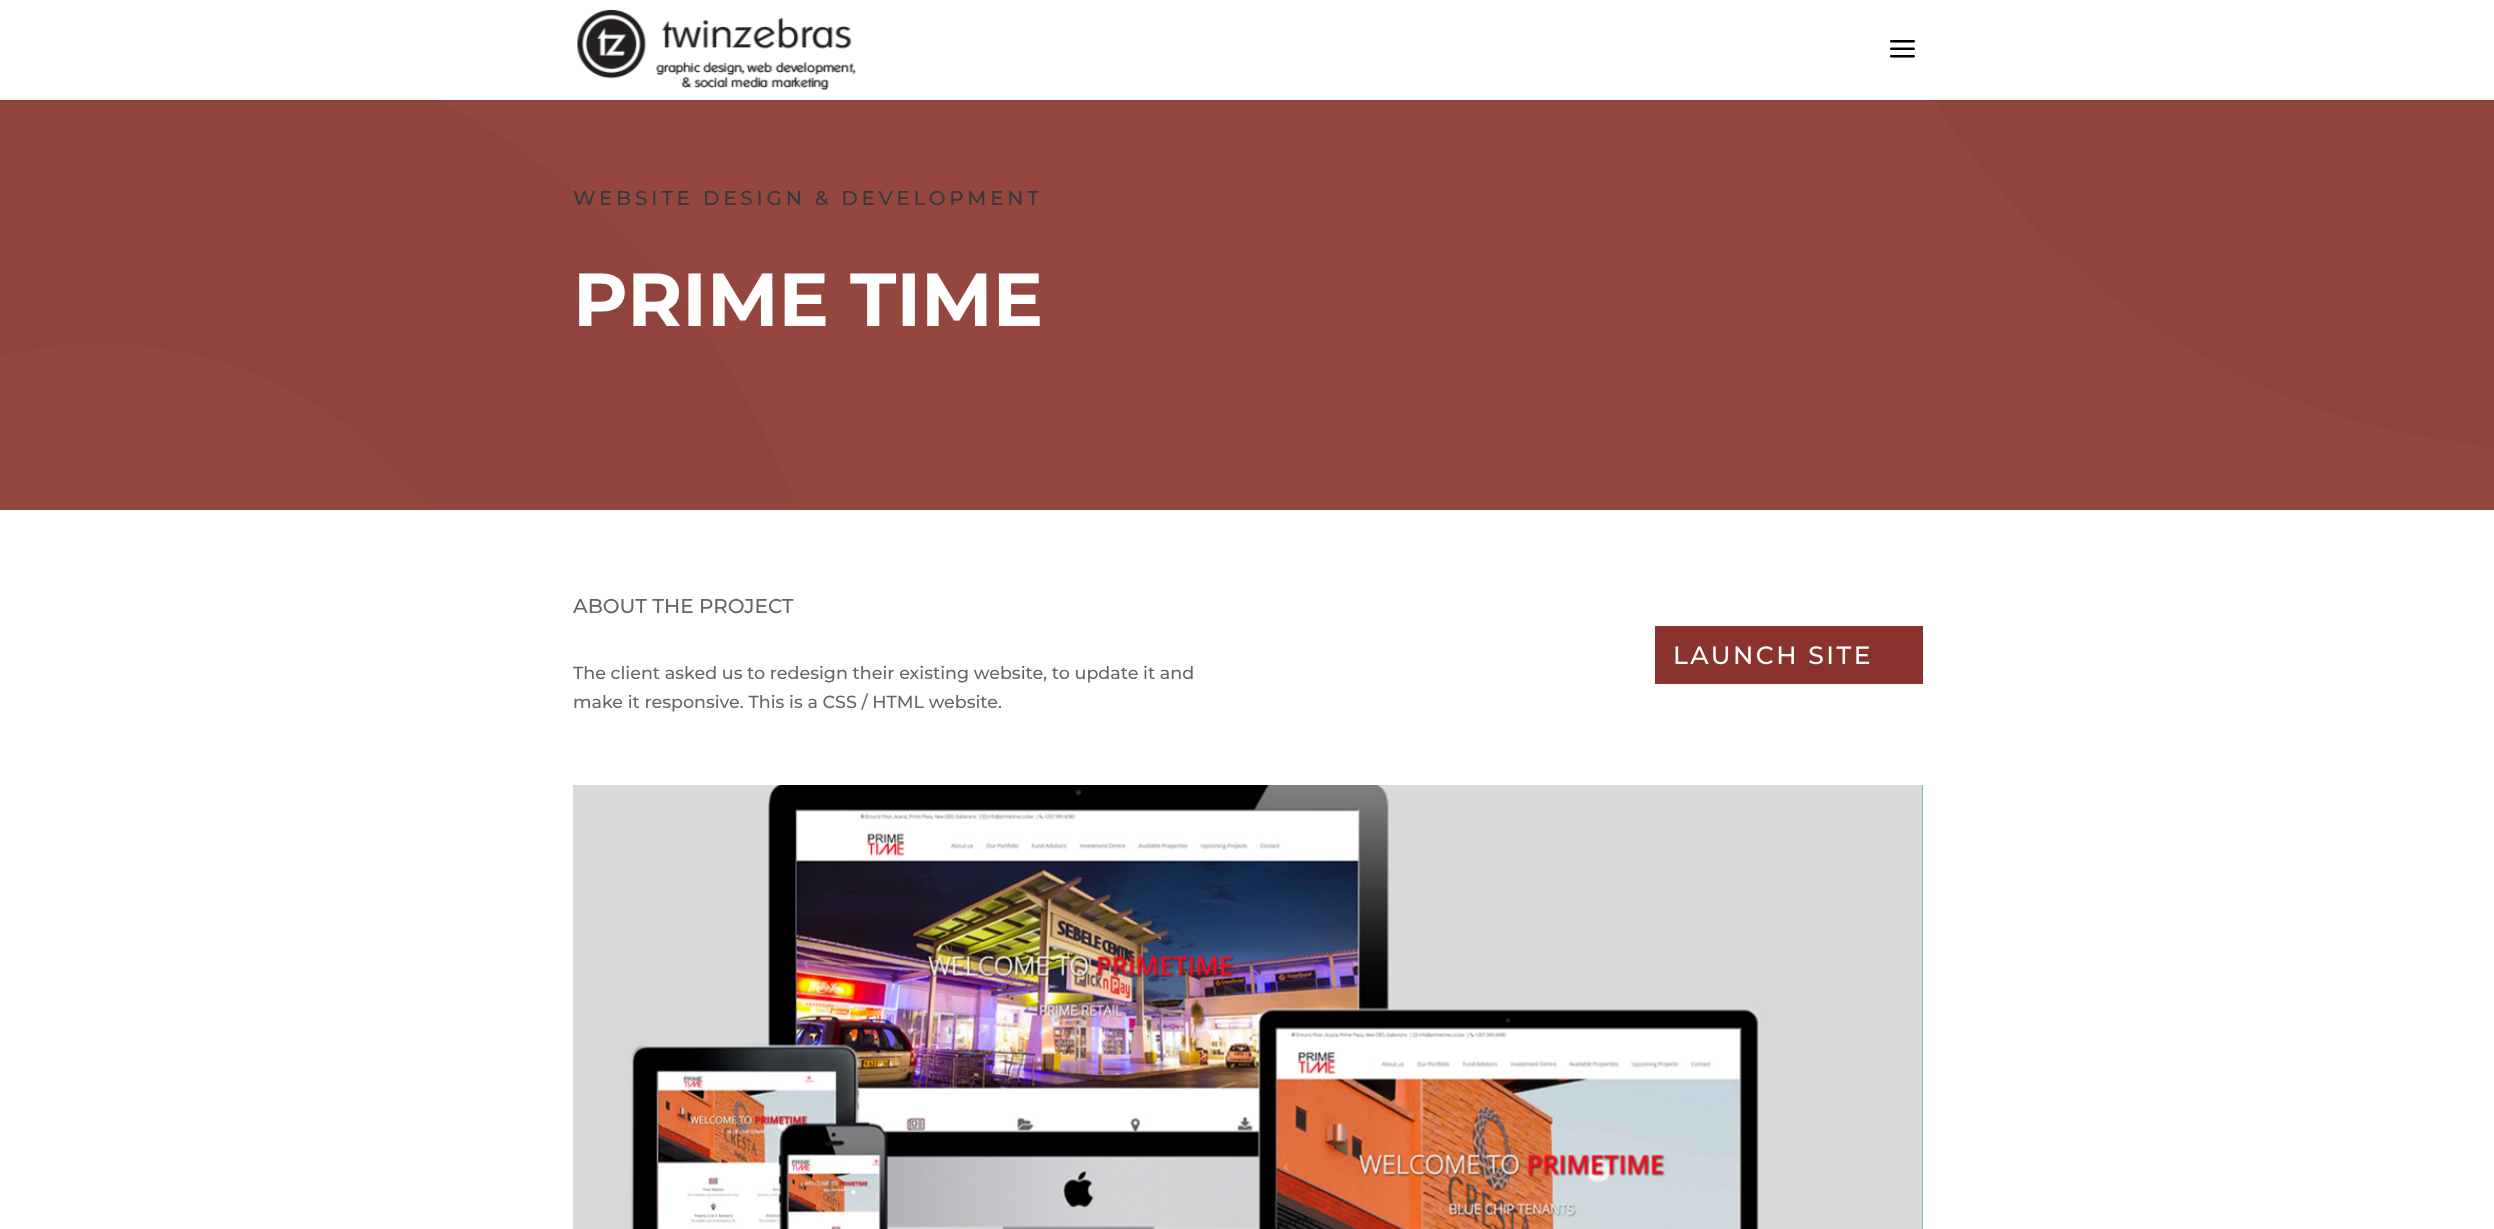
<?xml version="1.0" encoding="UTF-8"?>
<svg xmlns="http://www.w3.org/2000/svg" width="2494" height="1229">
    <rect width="100%" height="100%" fill="#FFFFFF"/>
    <rect x="0" y="100" width="2494" height="410" fill="#95463F"/>
    <image x="0" y="100" width="2494" height="408" href="img_03.png"/>
    <rect x="0" y="100" width="2494" height="1" fill="#000000" fill-opacity="0.1"/>
    <image x="577" y="10" width="279" height="80" href="img_01.png"/>
    <image x="1890" y="40" width="25" height="18" href="img_02.png"/>
    <text x="573" y="205" font-family="Montserrat" font-size="20" font-weight="100" letter-spacing="3.75" fill="#353740">WEBSITE DESIGN &amp; DEVELOPMENT</text>
    <text x="573" y="326" font-family="'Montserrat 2'" font-size="75" font-weight="100" fill="#FFFFFF">PRIME TIME</text>
    <text x="573" y="613" font-family="Montserrat" font-size="20" font-weight="100" fill="#666666">ABOUT THE PROJECT</text>
    <text font-family="Montserrat" font-size="17.5" font-weight="100" fill="#666666">
        <tspan x="573" y="679">The client asked us to redesign their existing website, to update it and</tspan>
        <tspan x="573" y="708">make it responsive. This is a CSS / HTML website.</tspan>
    </text>
    <rect x="1655" y="626" width="268" height="58" fill="#8A322E"/>
    <text x="1673" y="664" font-family="Montserrat" font-size="25" font-weight="100" letter-spacing="2.5" fill="#FFFFFF">LAUNCH SITE</text>
    <rect x="1922" y="785" width="1" height="444" fill="#288AA9"/>
    <image x="573" y="785" width="1350" height="444" href="img_04.png"/>
</svg>
